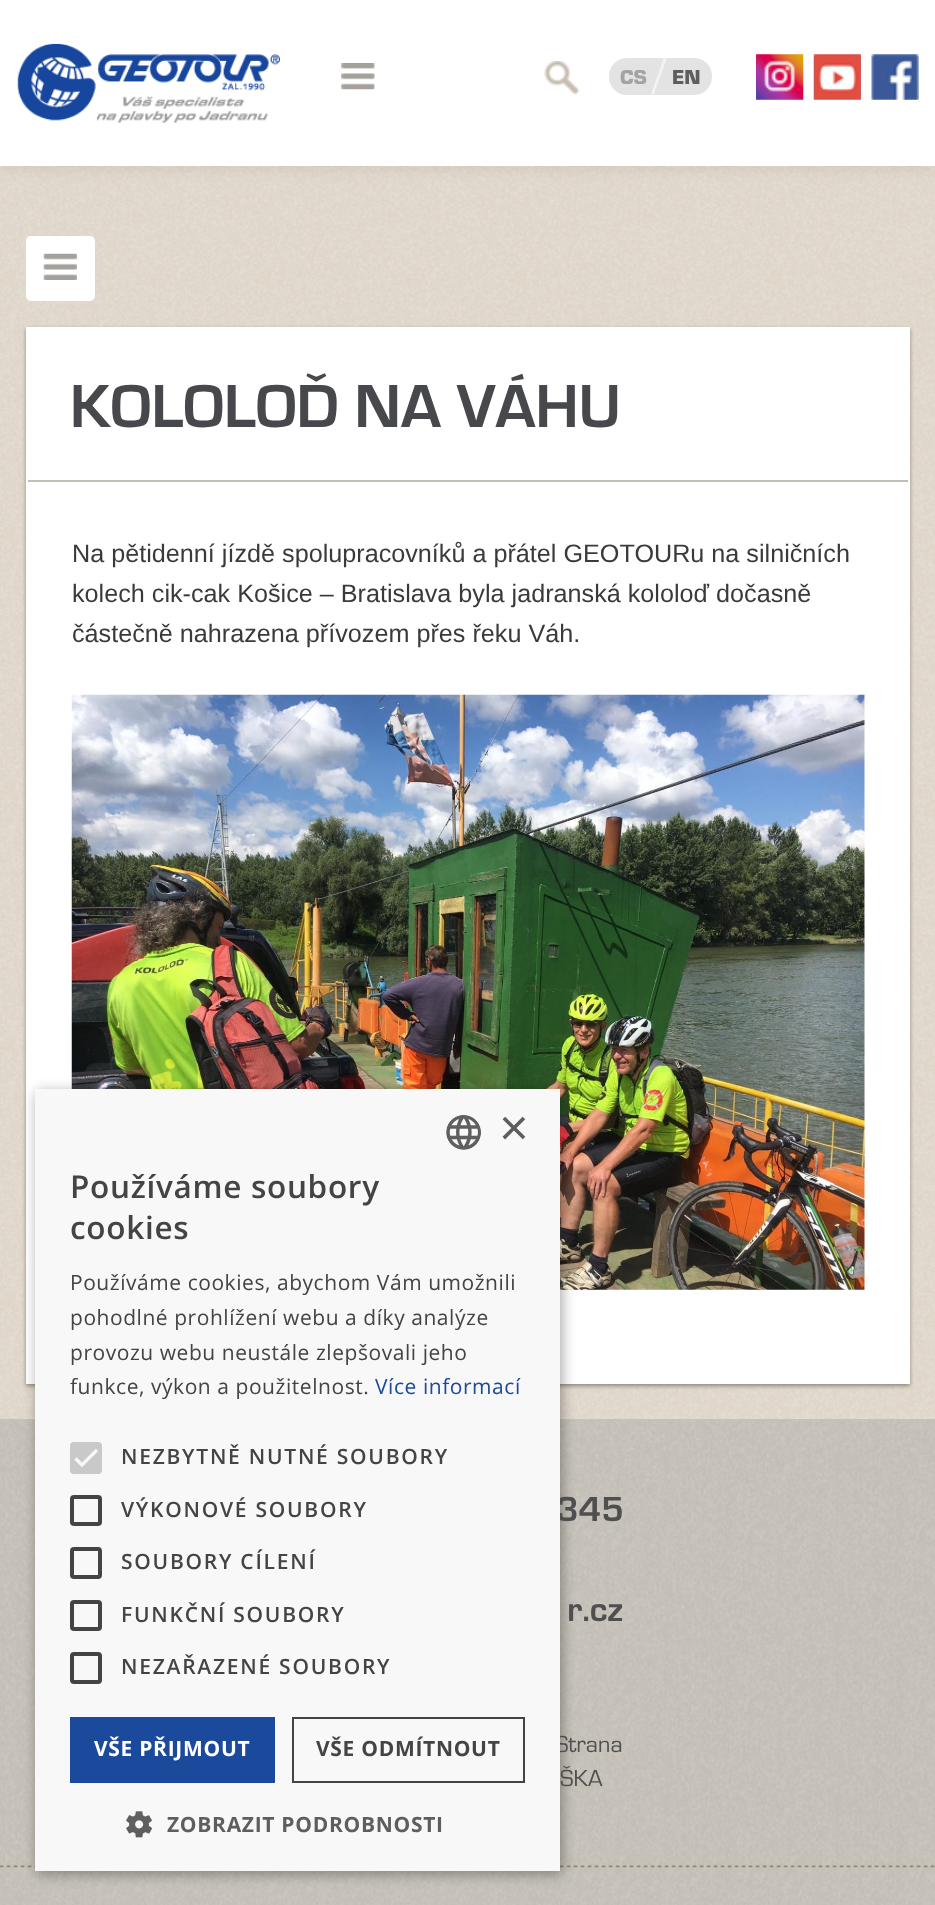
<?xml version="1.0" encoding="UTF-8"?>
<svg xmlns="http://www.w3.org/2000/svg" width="935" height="1905">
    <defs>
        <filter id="blur1" x="-50%" y="-200%" width="200%" height="500%"><feGaussianBlur stdDeviation="9"/></filter>
        <filter id="blur2" x="-50%" y="-200%" width="200%" height="500%"><feGaussianBlur stdDeviation="2"/></filter>
        <filter id="blur3" x="-50%" y="-200%" width="200%" height="500%"><feGaussianBlur stdDeviation="7"/></filter>
    </defs>
    <rect width="100%" height="100%" fill="#FFFFFF"/>
    <image x="0" y="166" width="935" height="1253" href="img_01.png"/>
    <rect x="0" y="0" width="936" height="166" fill="#000000" fill-opacity="0.1" filter="url(#blur1)"/>
    <rect x="0" y="0" width="935" height="166" fill="#FFFFFF"/>
    <image x="17" y="43" width="263" height="80" href="img_02.png"/>
    <image x="341" y="63" width="34" height="27" href="img_03.png"/>
    <image x="544" y="61" width="36" height="34" href="img_04.png"/>
    <rect x="609" y="58" width="103" height="37" rx="18" fill="#E3E3E3"/>
    <image x="651" y="58" width="16" height="37" href="img_05.png"/>
    <text x="620" y="84" font-family="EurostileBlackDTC" font-size="21" font-weight="900" fill="#A4A3A3">CS</text>
    <text x="672" y="84" font-family="EurostileBlackDTC" font-size="21" font-weight="900" fill="#5E5E5E">EN</text>
    <image x="756" y="54" width="48" height="46" href="img_06.png"/>
    <image x="813" y="54" width="48" height="46" href="img_07.png"/>
    <image x="871" y="54" width="48" height="46" href="img_08.png"/>
    <rect x="26" y="236" width="69" height="65" rx="5" fill="#FFFFFF"/>
    <image x="43" y="253" width="34" height="27" href="img_09.png"/>
    <rect x="26" y="329" width="884" height="1057" fill="#8F877C" filter="url(#blur2)"/>
    <rect x="26" y="327" width="884" height="1057" fill="#FFFFFF"/>
    <rect x="28" y="480" width="880" height="2" fill="#C3BEB6"/>
    <text x="70" y="427" font-family="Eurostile" font-size="63" font-weight="700" fill="#47484B">KOLOLOĎ NA VÁHU</text>
    <text font-family="Liberation Sans" font-size="25.2" fill="#3A3A3A">
        <tspan x="72" y="562">Na pětidenní jízdě spolupracovníků a přátel GEOTOURu na silničních</tspan>
        <tspan x="72" y="602">kolech cik-cak Košice – Bratislava byla jadranská kololoď dočasně</tspan>
        <tspan x="72" y="642">částečně nahrazena přívozem přes řeku Váh.</tspan>
    </text>
    <image x="71" y="694" width="794" height="596" href="img_10.png"/>
    <rect x="0" y="1419" width="935" height="1" fill="#C6C1B9"/>
    <image x="0" y="1420" width="935" height="485" href="img_13.png"/>
    <image x="0" y="1865" width="935" height="3" href="img_14.png"/>
    <rect x="37" y="1092" width="525" height="782" fill="#000000" fill-opacity="0.35" filter="url(#blur3)"/>
    <text x="556" y="1521" font-family="Eurostile" font-size="36" font-weight="700" fill="#4F4F4F">345</text>
    <text x="555" y="1752" font-family="Eurostile" font-size="24" fill="#4F4F4F">Strana</text>
    <rect x="35" y="1089" width="525" height="782" fill="#F8F8F8"/>
    <image x="446" y="1115" width="35" height="35" href="img_11.png"/>
    <text x="499" y="1145" font-family="Liberation Sans" font-size="51" fill="#5E5E5E">×</text>
    <text font-family="Open Sans" font-size="31.5" font-weight="600" letter-spacing="0.7" fill="#444444">
        <tspan x="70" y="1198">Používáme soubory</tspan>
        <tspan x="70" y="1239">cookies</tspan>
    </text>
    <text font-family="Open Sans" font-size="21" letter-spacing="0.55" fill="#444444">
        <tspan x="70" y="1290">Používáme cookies, abychom Vám umožnili</tspan>
        <tspan x="70" y="1325">pohodlné prohlížení webu a díky analýze</tspan>
        <tspan x="70" y="1360">provozu webu neustále zlepšovali jeho</tspan>
        <tspan x="70" y="1394">funkce, výkon a použitelnost.</tspan>
    </text>
    <text x="375" y="1394" font-family="Open Sans" font-size="21" letter-spacing="0.55" fill="#1B499C">Více informací</text>
    <rect x="70" y="1442" width="32" height="32" rx="4" fill="#C9C9C9"/>
    <path d="M 75.5 1458.5 L 82 1465 L 97 1450" fill="none" stroke="#F8F8F8" stroke-width="3.2"/>
    <text x="121" y="1464" font-family="Open Sans" font-size="21" font-weight="600" letter-spacing="1.75" fill="#444444">NEZBYTNĚ NUTNÉ SOUBORY</text>
    <rect x="72" y="1497" width="28" height="27" rx="2" fill="none" stroke="#444444" stroke-width="4"/>
    <text x="121" y="1517" font-family="Open Sans" font-size="21" font-weight="600" letter-spacing="1.75" fill="#444444">VÝKONOVÉ SOUBORY</text>
    <rect x="72" y="1549" width="28" height="28" rx="2" fill="none" stroke="#444444" stroke-width="4"/>
    <text x="121" y="1569" font-family="Open Sans" font-size="21" font-weight="600" letter-spacing="1.75" fill="#444444">SOUBORY CÍLENÍ</text>
    <rect x="72" y="1602" width="28" height="27" rx="2" fill="none" stroke="#444444" stroke-width="4"/>
    <text x="121" y="1622" font-family="Open Sans" font-size="21" font-weight="600" letter-spacing="1.75" fill="#444444">FUNKČNÍ SOUBORY</text>
    <rect x="72" y="1654" width="28" height="28" rx="2" fill="none" stroke="#444444" stroke-width="4"/>
    <text x="121" y="1674" font-family="Open Sans" font-size="21" font-weight="600" letter-spacing="1.75" fill="#444444">NEZAŘAZENÉ SOUBORY</text>
    <rect x="70" y="1717" width="205" height="66" fill="#1B499C"/>
    <text x="94" y="1756" font-family="Open Sans" font-size="21" font-weight="700" letter-spacing="0.7" fill="#FFFFFF">VŠE PŘIJMOUT</text>
    <rect x="293" y="1718" width="231" height="64" fill="none" stroke="#444444" stroke-width="2"/>
    <text x="316" y="1756" font-family="Open Sans" font-size="21" font-weight="700" letter-spacing="0.7" fill="#444444">VŠE ODMÍTNOUT</text>
    <image x="126" y="1811" width="26" height="27" href="img_12.png"/>
    <text x="167" y="1832" font-family="Open Sans" font-size="21" font-weight="700" letter-spacing="0.7" fill="#5E5E5E">ZOBRAZIT PODROBNOSTI</text>
    <text x="567" y="1621" font-family="Eurostile" font-size="36" font-weight="700" fill="#4F4F4F">r.cz</text>
    <text x="560" y="1786" font-family="Eurostile" font-size="24" fill="#4F4F4F">ŠKA</text>
</svg>
